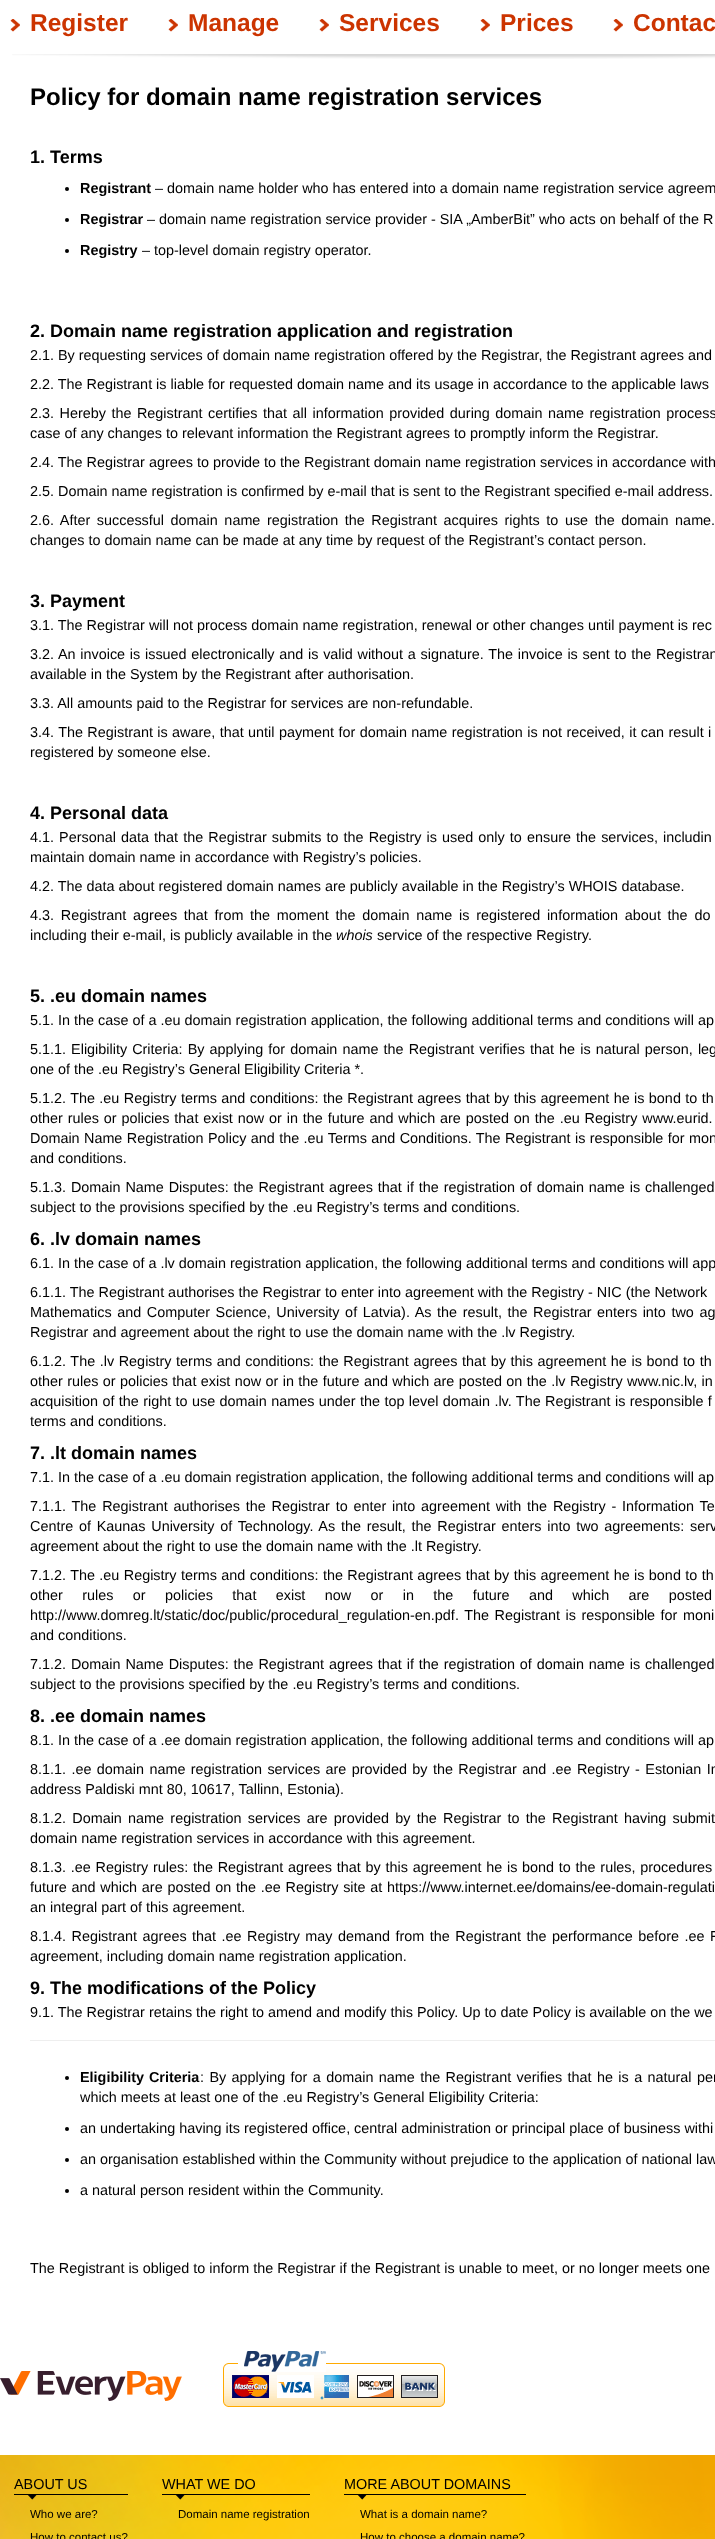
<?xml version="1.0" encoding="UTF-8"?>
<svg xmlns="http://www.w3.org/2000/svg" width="715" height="2539">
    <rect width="100%" height="100%" fill="#FFFFFF"/>
    <image x="12" y="54" width="703" height="5" href="img_01.png"/>
    <image x="10" y="19" width="10" height="13" href="img_02.png"/>
    <text x="30" y="31" font-family="Liberation Sans" font-size="24.5" font-weight="700" fill="#CC3400">Register</text>
    <image x="168" y="19" width="10" height="13" href="img_02.png"/>
    <text x="188" y="31" font-family="Liberation Sans" font-size="24.5" font-weight="700" fill="#CC3400">Manage</text>
    <image x="319" y="19" width="10" height="13" href="img_02.png"/>
    <text x="339" y="31" font-family="Liberation Sans" font-size="24.5" font-weight="700" fill="#CC3400">Services</text>
    <image x="480" y="19" width="10" height="13" href="img_02.png"/>
    <text x="500" y="31" font-family="Liberation Sans" font-size="24.5" font-weight="700" fill="#CC3400">Prices</text>
    <image x="613" y="19" width="10" height="13" href="img_02.png"/>
    <text x="633" y="31" font-family="Liberation Sans" font-size="24.5" font-weight="700" fill="#CC3400">Contac</text>
    <text x="30" y="105" font-family="Liberation Sans" font-size="24" font-weight="700" fill="#000000">Policy for domain name registration services</text>
    <text x="30" y="163" font-family="Liberation Sans" font-size="18" font-weight="700" fill="#000000">1. Terms</text>
    <circle cx="67" cy="189" r="2" fill="#000000"/>
    <text x="80" y="193" font-family="Liberation Sans" font-size="14.4" font-weight="700" fill="#000000">Registrant</text>
    <text x="155" y="193" font-family="Liberation Sans" font-size="14.4" fill="#000000">– domain name holder who has entered into a domain name registration service agreem</text>
    <circle cx="67" cy="220" r="2" fill="#000000"/>
    <text x="80" y="224" font-family="Liberation Sans" font-size="14.4" font-weight="700" fill="#000000">Registrar</text>
    <text x="147" y="224" font-family="Liberation Sans" font-size="14.4" fill="#000000">– domain name registration service provider - SIA „AmberBit” who acts on behalf of the R</text>
    <circle cx="67" cy="251" r="2" fill="#000000"/>
    <text x="80" y="255" font-family="Liberation Sans" font-size="14.4" font-weight="700" fill="#000000">Registry</text>
    <text x="142" y="255" font-family="Liberation Sans" font-size="14.4" fill="#000000">– top-level domain registry operator.</text>
    <text x="30" y="337" font-family="Liberation Sans" font-size="18" font-weight="700" fill="#000000">2. Domain name registration application and registration</text>
    <text x="30" y="360" font-family="Liberation Sans" font-size="14.4" fill="#000000">2.1. By requesting services of domain name registration offered by the Registrar, the Registrant agrees and</text>
    <text x="30" y="389" font-family="Liberation Sans" font-size="14.4" fill="#000000">2.2. The Registrant is liable for requested domain name and its usage in accordance to the applicable laws</text>
    <text font-family="Liberation Sans" font-size="14.4" fill="#000000">
        <tspan x="30" y="418" word-spacing="1.5">2.3. Hereby the Registrant certifies that all information provided during domain name registration process</tspan>
        <tspan x="30" y="438">case of any changes to relevant information the Registrant agrees to promptly inform the Registrar.</tspan>
    </text>
    <text x="30" y="467" font-family="Liberation Sans" font-size="14.4" fill="#000000">2.4. The Registrar agrees to provide to the Registrant domain name registration services in accordance with</text>
    <text x="30" y="496" font-family="Liberation Sans" font-size="14.4" fill="#000000">2.5. Domain name registration is confirmed by e-mail that is sent to the Registrant specified e-mail address.</text>
    <text font-family="Liberation Sans" font-size="14.4" fill="#000000">
        <tspan x="30" y="525" word-spacing="2.6">2.6. After successful domain name registration the Registrant acquires rights to use the domain name.</tspan>
        <tspan x="30" y="545">changes to domain name can be made at any time by request of the Registrant’s contact person.</tspan>
    </text>
    <text x="30" y="607" font-family="Liberation Sans" font-size="18" font-weight="700" fill="#000000">3. Payment</text>
    <text x="30" y="630" font-family="Liberation Sans" font-size="14.4" fill="#000000">3.1. The Registrar will not process domain name registration, renewal or other changes until payment is rec</text>
    <text font-family="Liberation Sans" font-size="14.4" fill="#000000">
        <tspan x="30" y="659" word-spacing="0.75">3.2. An invoice is issued electronically and is valid without a signature. The invoice is sent to the Registran</tspan>
        <tspan x="30" y="679">available in the System by the Registrant after authorisation.</tspan>
    </text>
    <text x="30" y="708" font-family="Liberation Sans" font-size="14.4" fill="#000000">3.3. All amounts paid to the Registrar for services are non-refundable.</text>
    <text font-family="Liberation Sans" font-size="14.4" fill="#000000">
        <tspan x="30" y="737" word-spacing="0.4">3.4. The Registrant is aware, that until payment for domain name registration is not received, it can result i</tspan>
        <tspan x="30" y="757">registered by someone else.</tspan>
    </text>
    <text x="30" y="819" font-family="Liberation Sans" font-size="18" font-weight="700" fill="#000000">4. Personal data</text>
    <text font-family="Liberation Sans" font-size="14.4" fill="#000000">
        <tspan x="30" y="842" word-spacing="1.1">4.1. Personal data that the Registrar submits to the Registry is used only to ensure the services, includin</tspan>
        <tspan x="30" y="862">maintain domain name in accordance with Registry’s policies.</tspan>
    </text>
    <text x="30" y="891" font-family="Liberation Sans" font-size="14.4" fill="#000000">4.2. The data about registered domain names are publicly available in the Registry’s WHOIS database.</text>
    <text font-family="Liberation Sans" font-size="14.4" fill="#000000">
        <tspan x="30" y="920" word-spacing="2.75">4.3. Registrant agrees that from the moment the domain name is registered information about the do</tspan>
        <tspan x="30" y="940">including their e-mail, is publicly available in the</tspan>
    </text>
    <text x="336" y="940" font-family="Liberation Sans" font-size="14.4" font-style="italic" fill="#000000">whois</text>
    <text x="377" y="940" font-family="Liberation Sans" font-size="14.4" fill="#000000">service of the respective Registry.</text>
    <text x="30" y="1002" font-family="Liberation Sans" font-size="18" font-weight="700" fill="#000000">5. .eu domain names</text>
    <text x="30" y="1025" font-family="Liberation Sans" font-size="14.4" fill="#000000">5.1. In the case of a .eu domain registration application, the following additional terms and conditions will ap</text>
    <text font-family="Liberation Sans" font-size="14.4" fill="#000000">
        <tspan x="30" y="1054" word-spacing="1.1">5.1.1. Eligibility Criteria: By applying for domain name the Registrant verifies that he is natural person, leg</tspan>
        <tspan x="30" y="1074">one of the .eu Registry’s General Eligibility Criteria *.</tspan>
    </text>
    <text font-family="Liberation Sans" font-size="14.4" fill="#000000">
        <tspan x="30" y="1103" word-spacing="0.4">5.1.2. The .eu Registry terms and conditions: the Registrant agrees that by this agreement he is bond to th</tspan>
        <tspan x="30" y="1123" word-spacing="0.9">other rules or policies that exist now or in the future and which are posted on the .eu Registry www.eurid.</tspan>
        <tspan x="30" y="1143" word-spacing="0.4">Domain Name Registration Policy and the .eu Terms and Conditions. The Registrant is responsible for mon</tspan>
        <tspan x="30" y="1163">and conditions.</tspan>
    </text>
    <text font-family="Liberation Sans" font-size="14.4" fill="#000000">
        <tspan x="30" y="1192" word-spacing="0.9">5.1.3. Domain Name Disputes: the Registrant agrees that if the registration of domain name is challenged</tspan>
        <tspan x="30" y="1212">subject to the provisions specified by the .eu Registry’s terms and conditions.</tspan>
    </text>
    <text x="30" y="1245" font-family="Liberation Sans" font-size="18" font-weight="700" fill="#000000">6. .lv domain names</text>
    <text x="30" y="1268" font-family="Liberation Sans" font-size="14.4" fill="#000000">6.1. In the case of a .lv domain registration application, the following additional terms and conditions will app</text>
    <text font-family="Liberation Sans" font-size="14.4" fill="#000000">
        <tspan x="30" y="1297">6.1.1. The Registrant authorises the Registrar to enter into agreement with the Registry - NIC (the Network</tspan>
        <tspan x="30" y="1317" word-spacing="1.6">Mathematics and Computer Science, University of Latvia). As the result, the Registrar enters into two ag</tspan>
        <tspan x="30" y="1337">Registrar and agreement about the right to use the domain name with the .lv Registry.</tspan>
    </text>
    <text font-family="Liberation Sans" font-size="14.4" fill="#000000">
        <tspan x="30" y="1366" word-spacing="0.6">6.1.2. The .lv Registry terms and conditions: the Registrant agrees that by this agreement he is bond to th</tspan>
        <tspan x="30" y="1386" word-spacing="0.4">other rules or policies that exist now or in the future and which are posted on the .lv Registry www.nic.lv, in</tspan>
        <tspan x="30" y="1406" word-spacing="0.4">acquisition of the right to use domain names under the top level domain .lv. The Registrant is responsible f</tspan>
        <tspan x="30" y="1426">terms and conditions.</tspan>
    </text>
    <text x="30" y="1459" font-family="Liberation Sans" font-size="18" font-weight="700" fill="#000000">7. .lt domain names</text>
    <text x="30" y="1482" font-family="Liberation Sans" font-size="14.4" fill="#000000">7.1. In the case of a .eu domain registration application, the following additional terms and conditions will ap</text>
    <text font-family="Liberation Sans" font-size="14.4" fill="#000000">
        <tspan x="30" y="1511" word-spacing="1.8">7.1.1. The Registrant authorises the Registrar to enter into agreement with the Registry - Information Te</tspan>
        <tspan x="30" y="1531" word-spacing="1.75">Centre of Kaunas University of Technology. As the result, the Registrar enters into two agreements: serv</tspan>
        <tspan x="30" y="1551">agreement about the right to use the domain name with the .lt Registry.</tspan>
    </text>
    <text font-family="Liberation Sans" font-size="14.4" fill="#000000">
        <tspan x="30" y="1580" word-spacing="0.4">7.1.2. The .eu Registry terms and conditions: the Registrant agrees that by this agreement he is bond to th</tspan>
        <tspan x="30" y="1600" word-spacing="15.4">other rules or policies that exist now or in the future and which are posted</tspan>
        <tspan x="30" y="1620">http://www.domreg.lt/static/doc/public/procedural_regulation-en.pdf</tspan>
    </text>
    <text x="455" y="1620" word-spacing="1.5" font-family="Liberation Sans" font-size="14.4" fill="#000000">. The Registrant is responsible for moni</text>
    <text x="30" y="1640" font-family="Liberation Sans" font-size="14.4" fill="#000000">and conditions.</text>
    <text font-family="Liberation Sans" font-size="14.4" fill="#000000">
        <tspan x="30" y="1669" word-spacing="0.9">7.1.2. Domain Name Disputes: the Registrant agrees that if the registration of domain name is challenged</tspan>
        <tspan x="30" y="1689">subject to the provisions specified by the .eu Registry’s terms and conditions.</tspan>
    </text>
    <text x="30" y="1722" font-family="Liberation Sans" font-size="18" font-weight="700" fill="#000000">8. .ee domain names</text>
    <text x="30" y="1745" font-family="Liberation Sans" font-size="14.4" fill="#000000">8.1. In the case of a .ee domain registration application, the following additional terms and conditions will ap</text>
    <text font-family="Liberation Sans" font-size="14.4" fill="#000000">
        <tspan x="30" y="1774" word-spacing="1.4">8.1.1. .ee domain name registration services are provided by the Registrar and .ee Registry - Estonian In</tspan>
        <tspan x="30" y="1794">address Paldiski mnt 80, 10617, Tallinn, Estonia).</tspan>
    </text>
    <text font-family="Liberation Sans" font-size="14.4" fill="#000000">
        <tspan x="30" y="1823" word-spacing="2.25">8.1.2. Domain name registration services are provided by the Registrar to the Registrant having submit</tspan>
        <tspan x="30" y="1843">domain name registration services in accordance with this agreement.</tspan>
    </text>
    <text font-family="Liberation Sans" font-size="14.4" fill="#000000">
        <tspan x="30" y="1872" word-spacing="0.75">8.1.3. .ee Registry rules: the Registrant agrees that by this agreement he is bond to the rules, procedures</tspan>
        <tspan x="30" y="1892" word-spacing="0.75">future and which are posted on the .ee Registry site at</tspan>
    </text>
    <text x="387" y="1892" font-family="Liberation Sans" font-size="14.4" fill="#000000">https://www.internet.ee/domains/ee-domain-regulati</text>
    <text x="30" y="1912" font-family="Liberation Sans" font-size="14.4" fill="#000000">an integral part of this agreement.</text>
    <text font-family="Liberation Sans" font-size="14.4" fill="#000000">
        <tspan x="30" y="1941" word-spacing="1.5">8.1.4. Registrant agrees that .ee Registry may demand from the Registrant the performance before .ee R</tspan>
        <tspan x="30" y="1961">agreement, including domain name registration application.</tspan>
    </text>
    <text x="30" y="1994" font-family="Liberation Sans" font-size="18" font-weight="700" fill="#000000">9. The modifications of the Policy</text>
    <text x="30" y="2017" font-family="Liberation Sans" font-size="14.4" fill="#000000">9.1. The Registrar retains the right to amend and modify this Policy. Up to date Policy is available on the we</text>
    <rect x="30" y="2040" width="685" height="1" fill="#EEEEEE"/>
    <circle cx="67" cy="2078" r="2" fill="#000000"/>
    <text x="80" y="2082" word-spacing="1" font-family="Liberation Sans" font-size="14.4" font-weight="700" fill="#000000">Eligibility Criteria</text>
    <text x="200" y="2082" word-spacing="1.4" font-family="Liberation Sans" font-size="14.4" fill="#000000">: By applying for a domain name the Registrant verifies that he is a natural per</text>
    <text x="80" y="2102" font-family="Liberation Sans" font-size="14.4" fill="#000000">which meets at least one of the .eu Registry’s General Eligibility Criteria:</text>
    <circle cx="67" cy="2129" r="2" fill="#000000"/>
    <text x="80" y="2133" font-family="Liberation Sans" font-size="14.4" fill="#000000">an undertaking having its registered office, central administration or principal place of business withi</text>
    <circle cx="67" cy="2160" r="2" fill="#000000"/>
    <text x="80" y="2164" font-family="Liberation Sans" font-size="14.4" fill="#000000">an organisation established within the Community without prejudice to the application of national law</text>
    <circle cx="67" cy="2191" r="2" fill="#000000"/>
    <text x="80" y="2195" font-family="Liberation Sans" font-size="14.4" fill="#000000">a natural person resident within the Community.</text>
    <text x="30" y="2273" font-family="Liberation Sans" font-size="14.4" fill="#000000">The Registrant is obliged to inform the Registrar if the Registrant is unable to meet, or no longer meets one</text>
    <image x="0" y="2371" width="182" height="30" href="img_03.png"/>
    <image x="223" y="2351" width="222" height="56" href="img_04.png"/>
    <image x="0" y="2455" width="715" height="84" href="img_05.png"/>
    <image x="14" y="2494" width="114" height="6" href="img_06.png"/>
    <text x="14" y="2489" font-family="Liberation Sans" font-size="14.4" fill="#000000">ABOUT US</text>
    <text x="30" y="2518" font-family="Liberation Sans" font-size="11.5" fill="#000000">Who we are?</text>
    <text x="30" y="2541" font-family="Liberation Sans" font-size="11.5" fill="#000000">How to contact us?</text>
    <image x="162" y="2494" width="148" height="6" href="img_07.png"/>
    <text x="162" y="2489" font-family="Liberation Sans" font-size="14.4" fill="#000000">WHAT WE DO</text>
    <text x="178" y="2518" font-family="Liberation Sans" font-size="11.5" fill="#000000">Domain name registration</text>
    <image x="344" y="2494" width="182" height="6" href="img_08.png"/>
    <text x="344" y="2489" font-family="Liberation Sans" font-size="14.4" fill="#000000">MORE ABOUT DOMAINS</text>
    <text x="360" y="2518" font-family="Liberation Sans" font-size="11.5" fill="#000000">What is a domain name?</text>
    <text x="360" y="2541" font-family="Liberation Sans" font-size="11.5" fill="#000000">How to choose a domain name?</text>
</svg>
